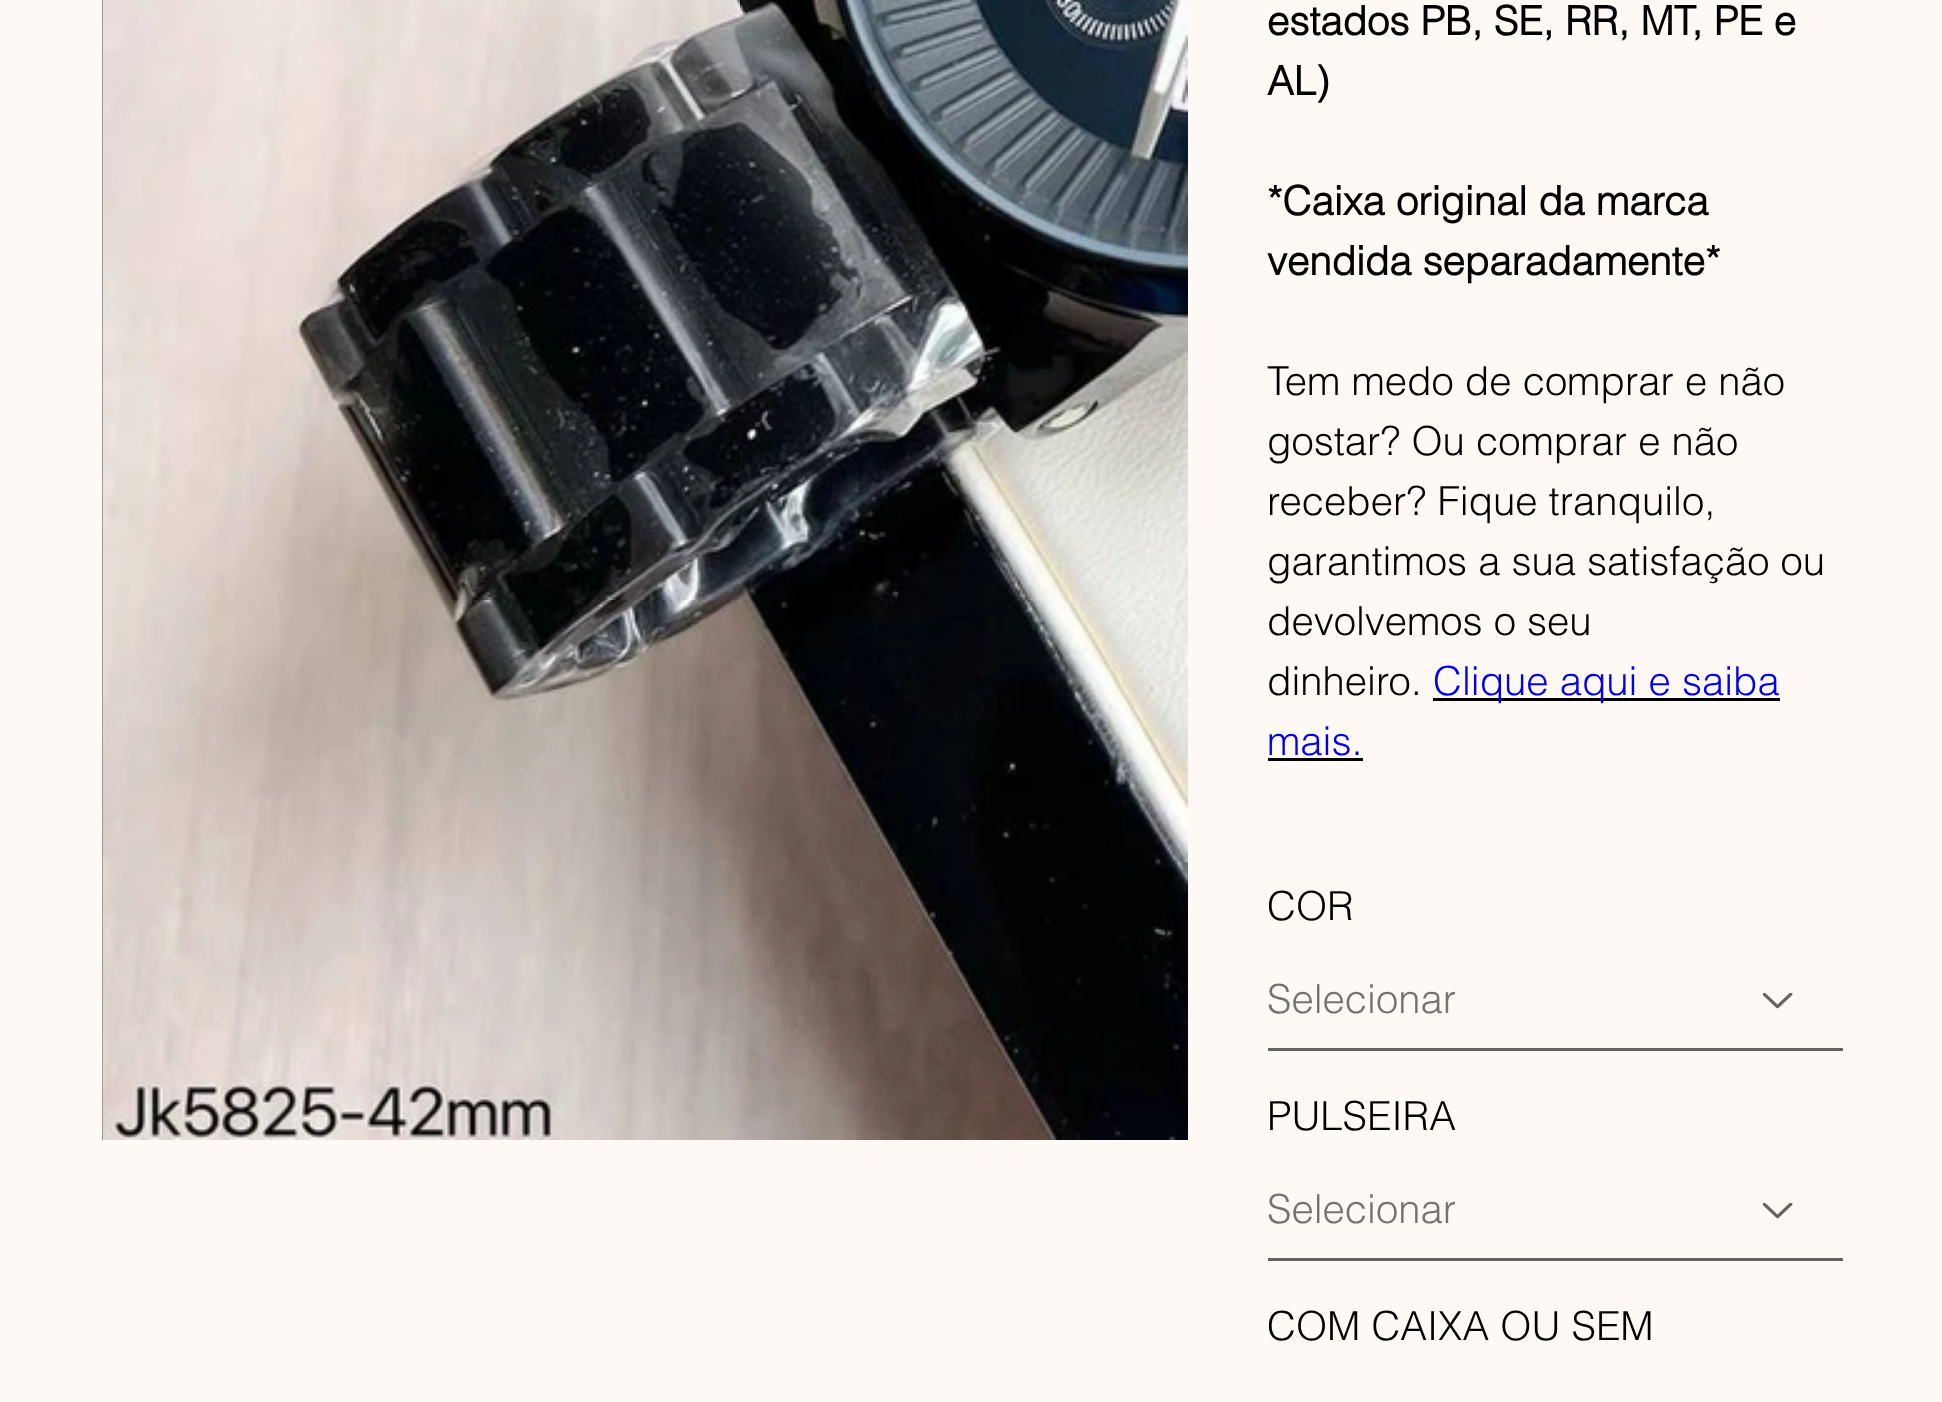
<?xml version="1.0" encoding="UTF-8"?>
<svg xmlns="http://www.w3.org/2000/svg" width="1942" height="1402">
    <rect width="100%" height="100%" fill="#FFF9F6"/>
    <rect x="102" y="0" width="1" height="1140" fill="#9A9A9A"/>
    <image x="103" y="0" width="1085" height="1140" href="img_01.png"/>
    <text font-family="helvetica" font-size="40" font-weight="700" fill="#000000">
        <tspan x="1267" y="35">estados PB, SE, RR, MT, PE e</tspan>
        <tspan x="1267" y="95">AL)</tspan>
    </text>
    <text font-family="helvetica" font-size="40" font-weight="700" fill="#000000">
        <tspan x="1267" y="215">*Caixa original da marca</tspan>
        <tspan x="1267" y="275">vendida separadamente*</tspan>
    </text>
    <text font-family="helvetica" font-size="40" font-weight="300" fill="#000000">
        <tspan x="1267" y="395">Tem medo de comprar e não</tspan>
        <tspan x="1267" y="455">gostar? Ou comprar e não</tspan>
        <tspan x="1267" y="515">receber? Fique tranquilo,</tspan>
        <tspan x="1267" y="575">garantimos a sua satisfação ou</tspan>
        <tspan x="1267" y="635">devolvemos o seu</tspan>
        <tspan x="1267" y="695">dinheiro.</tspan>
    </text>
    <rect x="1433" y="698" width="347" height="3" fill="#000000"/>
    <text x="1433" y="695" font-family="helvetica" font-size="40" font-weight="300" fill="#0000EE">Clique aqui e saiba</text>
    <text x="1267" y="755" font-family="helvetica" font-size="40" font-weight="300" fill="#0000EE">mais.</text>
    <rect x="1268" y="758" width="95" height="3" fill="#000000"/>
    <text x="1267" y="920" font-family="helvetica" font-size="40" font-weight="300" fill="#000000">COR</text>
    <rect x="1268" y="1048" width="575" height="3" fill="#666462"/>
    <text x="1267" y="1013" font-family="helvetica" font-size="40" font-weight="300" fill="#737373">Selecionar</text>
    <image x="1763" y="993" width="30" height="16" href="img_02.png"/>
    <text x="1267" y="1130" font-family="helvetica" font-size="40" font-weight="300" fill="#000000">PULSEIRA</text>
    <rect x="1268" y="1258" width="575" height="3" fill="#666462"/>
    <text x="1267" y="1223" font-family="helvetica" font-size="40" font-weight="300" fill="#737373">Selecionar</text>
    <image x="1763" y="1203" width="30" height="16" href="img_02.png"/>
    <text x="1267" y="1340" font-family="helvetica" font-size="40" font-weight="300" fill="#000000">COM CAIXA OU SEM</text>
</svg>
